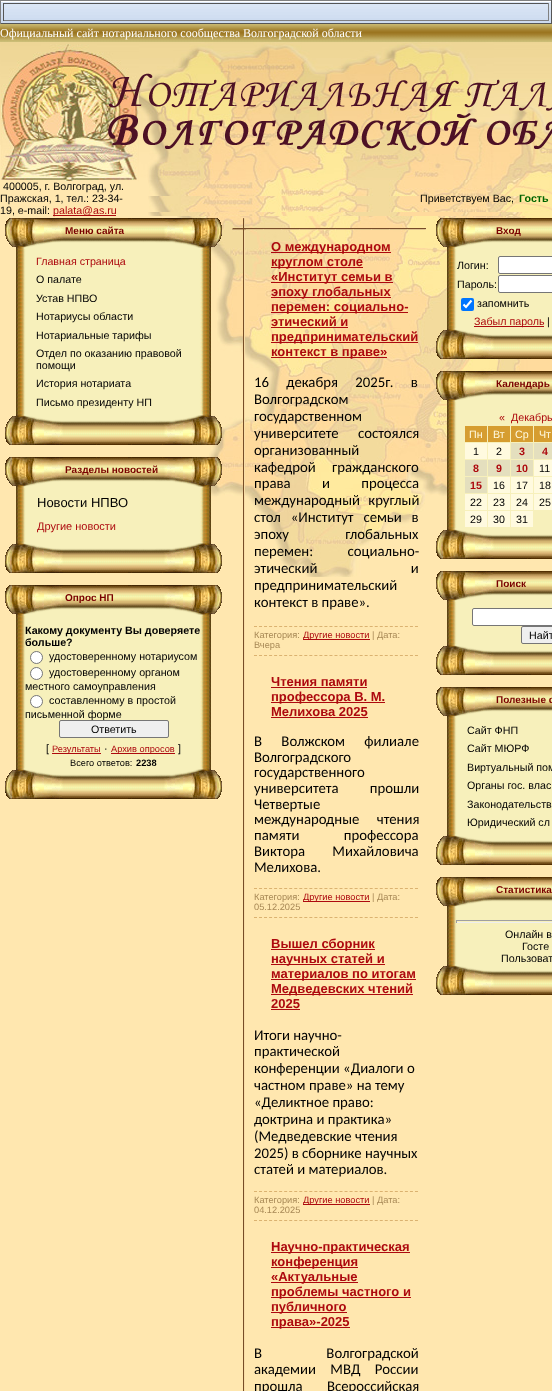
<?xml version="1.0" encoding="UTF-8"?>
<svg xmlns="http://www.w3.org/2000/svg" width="552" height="1391">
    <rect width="100%" height="100%" fill="#FFE7AF"/>
    <image x="1" y="1" width="550" height="22" href="img_01.png"/>
    <rect x="0" y="0" width="552" height="1" fill="#808080"/>
    <rect x="551" y="0" width="1" height="24" fill="#555555"/>
    <rect x="0" y="23" width="552" height="1" fill="#555555"/>
    <rect x="0" y="0" width="1" height="24" fill="#808080"/>
    <rect x="3" y="3" width="546" height="1" fill="#555555"/>
    <rect x="548" y="3" width="1" height="18" fill="#808080"/>
    <rect x="3" y="20" width="546" height="1" fill="#808080"/>
    <rect x="3" y="3" width="1" height="18" fill="#555555"/>
    <image x="0" y="24" width="552" height="18" href="img_02.png"/>
    <text x="0" y="37" font-family="Liberation Serif" font-size="12" fill="#FFFFFF">Официальный сайт нотариального сообщества Волгоградской области</text>
    <image x="0" y="42" width="120" height="103" href="img_03.png"/>
    <image x="120" y="42" width="5" height="2" href="img_04.png"/>
    <image x="125" y="42" width="427" height="138" href="img_05.png"/>
    <text x="3" y="190" font-family="Liberation Sans" font-size="10.7" fill="#000000">400005, г. Волгоград, ул.</text>
    <text font-family="Liberation Sans" font-size="10.7" fill="#000000">
        <tspan x="0" y="202">Пражская, 1, тел.: 23-34-</tspan>
        <tspan x="0" y="214">19, e-mail:</tspan>
    </text>
    <rect x="53" y="215" width="63" height="1" fill="#AD090E"/>
    <text x="53" y="214" font-family="Liberation Sans" font-size="10.7" fill="#AD090E">palata@as.ru</text>
    <image x="148" y="180" width="404" height="36" href="img_06.png"/>
    <text x="420" y="202" font-family="Liberation Sans" font-size="10.7" fill="#000000">Приветствуем Вас,</text>
    <text x="519" y="202" font-family="Liberation Sans" font-size="10.7" font-weight="700" fill="#006400">Гость</text>
    <image x="177" y="216" width="375" height="361" href="img_07.png"/>
    <image x="1" y="44" width="138" height="138" href="img_08.png"/>
    <image x="108" y="73" width="444" height="78" href="img_09.png"/>
    <image x="16" y="249" width="195" height="165" href="img_10.png"/>
    <image x="5" y="218" width="217" height="31" href="img_11.png"/>
    <text x="65" y="234" font-family="Liberation Sans" font-size="10" font-weight="700" fill="#790000">Меню сайта</text>
    <text x="36" y="265" font-family="Liberation Sans" font-size="10.7" fill="#AD090E">Главная страница</text>
    <text font-family="Liberation Sans" font-size="10.7" fill="#000000">
        <tspan x="36" y="283">О палате</tspan>
        <tspan x="36" y="302">Устав НПВО</tspan>
        <tspan x="36" y="320">Нотариусы области</tspan>
        <tspan x="36" y="339">Нотариальные тарифы</tspan>
        <tspan x="36" y="357">Отдел по оказанию правовой</tspan>
        <tspan x="36" y="369">помощи</tspan>
        <tspan x="36" y="387">История нотариата</tspan>
        <tspan x="36" y="406">Письмо президенту НП</tspan>
    </text>
    <image x="5" y="414" width="217" height="31" href="img_12.png"/>
    <image x="16" y="488" width="195" height="54" href="img_13.png"/>
    <image x="5" y="457" width="217" height="31" href="img_14.png"/>
    <text x="65" y="473" font-family="Liberation Sans" font-size="10" font-weight="700" fill="#790000">Разделы новостей</text>
    <text x="37" y="507" font-family="Liberation Sans" font-size="13" fill="#000000">Новости НПВО</text>
    <text x="37" y="530" font-family="Liberation Sans" font-size="11" fill="#AD090E">Другие новости</text>
    <image x="5" y="542" width="217" height="31" href="img_15.png"/>
    <image x="16" y="616" width="195" height="152" href="img_16.png"/>
    <image x="5" y="585" width="217" height="31" href="img_17.png"/>
    <text x="65" y="601" font-family="Liberation Sans" font-size="10" font-weight="700" fill="#790000">Опрос НП</text>
    <text font-family="Liberation Sans" font-size="10.7" font-weight="700" fill="#000000">
        <tspan x="25" y="634">Какому документу Вы доверяете</tspan>
        <tspan x="25" y="646">больше?</tspan>
    </text>
    <circle cx="36.5" cy="657.5" r="6" fill="#FFFFFF" stroke="#767676"/>
    <text x="49" y="660" font-family="Liberation Sans" font-size="10.7" fill="#000000">удостоверенному нотариусом</text>
    <circle cx="36.5" cy="673.5" r="6" fill="#FFFFFF" stroke="#767676"/>
    <text x="49" y="676" font-family="Liberation Sans" font-size="10.7" fill="#000000">удостоверенному органом</text>
    <text x="25" y="690" font-family="Liberation Sans" font-size="10.7" fill="#000000">местного самоуправления</text>
    <circle cx="36.5" cy="701.5" r="6" fill="#FFFFFF" stroke="#767676"/>
    <text x="49" y="704" font-family="Liberation Sans" font-size="10.7" fill="#000000">составленному в простой</text>
    <text x="25" y="718" font-family="Liberation Sans" font-size="10.7" fill="#000000">письменной форме</text>
    <rect x="59.5" y="720.5" width="109" height="17" rx="1.5" fill="#EFEFEF" stroke="#767676"/>
    <text x="91" y="733" font-family="Liberation Sans" font-size="10.7" fill="#000000">Ответить</text>
    <text x="46" y="752" font-family="Liberation Sans" font-size="10.7" fill="#000000">[</text>
    <rect x="52" y="753" width="49" height="1" fill="#AD090E"/>
    <text x="52" y="752" font-family="Liberation Sans" font-size="9.25" fill="#AD090E">Результаты</text>
    <text x="104" y="752" font-family="Liberation Sans" font-size="10.7" fill="#000000">·</text>
    <rect x="111" y="753" width="64" height="1" fill="#AD090E"/>
    <text x="111" y="752" font-family="Liberation Sans" font-size="9.25" fill="#AD090E">Архив опросов</text>
    <text x="178" y="752" font-family="Liberation Sans" font-size="10.7" fill="#000000">]</text>
    <text x="70" y="766" font-family="Liberation Sans" font-size="9.25" fill="#000000">Всего ответов:</text>
    <text x="136" y="766" font-family="Liberation Sans" font-size="9.25" font-weight="700" fill="#000000">2238</text>
    <image x="5" y="768" width="217" height="31" href="img_15.png"/>
    <image x="232" y="218" width="14" height="13" href="img_18.png"/>
    <image x="246" y="228" width="180" height="2" href="img_19.png"/>
    <image x="243" y="231" width="2" height="1160" href="img_20.png"/>
    <rect x="271" y="252" width="120" height="1" fill="#AD090E"/>
    <text x="271" y="251" font-family="Liberation Sans" font-size="13" font-weight="700" fill="#AD090E">О международном</text>
    <rect x="271" y="267" width="92" height="1" fill="#AD090E"/>
    <text x="271" y="266" font-family="Liberation Sans" font-size="13" font-weight="700" fill="#AD090E">круглом столе</text>
    <rect x="271" y="282" width="122" height="1" fill="#AD090E"/>
    <text x="271" y="281" font-family="Liberation Sans" font-size="13" font-weight="700" fill="#AD090E">«Институт семьи в</text>
    <rect x="271" y="297" width="120" height="1" fill="#AD090E"/>
    <text x="271" y="296" font-family="Liberation Sans" font-size="13" font-weight="700" fill="#AD090E">эпоху глобальных</text>
    <rect x="271" y="312" width="137" height="1" fill="#AD090E"/>
    <text font-family="Liberation Sans" font-size="13" font-weight="700" fill="#AD090E">
        <tspan x="271" y="311">перемен: социально-</tspan>
        <tspan x="271" y="326">этический и</tspan>
    </text>
    <rect x="271" y="327" width="77" height="1" fill="#AD090E"/>
    <rect x="271" y="342" width="147" height="1" fill="#AD090E"/>
    <text x="271" y="341" font-family="Liberation Sans" font-size="13" font-weight="700" fill="#AD090E">предпринимательский</text>
    <rect x="271" y="357" width="116" height="1" fill="#AD090E"/>
    <text x="271" y="356" font-family="Liberation Sans" font-size="13" font-weight="700" fill="#AD090E">контекст в праве»</text>
    <text font-family="Carlito" font-size="14.75" fill="#000000">
        <tspan x="254" y="387" word-spacing="14">16 декабря 2025г. в</tspan>
        <tspan x="254" y="404">Волгоградском</tspan>
        <tspan x="254" y="421">государственном</tspan>
        <tspan x="254" y="438" word-spacing="16">университете состоялся</tspan>
        <tspan x="254" y="455">организованный</tspan>
        <tspan x="254" y="472" word-spacing="13">кафедрой гражданского</tspan>
        <tspan x="254" y="488" word-spacing="28">права и процесса</tspan>
        <tspan x="254" y="505" word-spacing="5">международный круглый</tspan>
        <tspan x="254" y="522" word-spacing="6.5">стол «Институт семьи в</tspan>
        <tspan x="254" y="539" word-spacing="53">эпоху глобальных</tspan>
        <tspan x="254" y="556" word-spacing="31">перемен: социально-</tspan>
        <tspan x="254" y="573" word-spacing="90">этический и</tspan>
        <tspan x="254" y="590">предпринимательский</tspan>
        <tspan x="254" y="607">контекст в праве».</tspan>
    </text>
    <path d="M 254 626.5 H 418" fill="none" stroke="#DBB270" stroke-dasharray="3 2.03"/>
    <path d="M 254 655.5 H 418" fill="none" stroke="#DBB270" stroke-dasharray="3 2.03"/>
    <text x="254" y="638" font-family="Liberation Sans" font-size="9.25" fill="#A88956">Категория:</text>
    <rect x="303" y="639" width="67" height="1" fill="#AD090E"/>
    <text x="303" y="638" font-family="Liberation Sans" font-size="9.25" fill="#AD090E">Другие новости</text>
    <text x="372" y="638" font-family="Liberation Sans" font-size="9.25" fill="#A88956">| Дата:</text>
    <text x="254" y="648" font-family="Liberation Sans" font-size="9.25" fill="#A88956">Вчера</text>
    <text x="271" y="686" font-family="Liberation Sans" font-size="13" font-weight="700" fill="#AD090E">Чтения памяти</text>
    <rect x="271" y="687" width="96" height="1" fill="#AD090E"/>
    <rect x="271" y="702" width="114" height="1" fill="#AD090E"/>
    <text font-family="Liberation Sans" font-size="13" font-weight="700" fill="#AD090E">
        <tspan x="271" y="701">профессора В. М.</tspan>
        <tspan x="271" y="716">Мелихова 2025</tspan>
    </text>
    <rect x="271" y="717" width="97" height="1" fill="#AD090E"/>
    <text font-family="Carlito" font-size="14.75" fill="#000000">
        <tspan x="254" y="746" word-spacing="16">В Волжском филиале</tspan>
        <tspan x="254" y="762">Волгоградского</tspan>
        <tspan x="254" y="777">государственного</tspan>
        <tspan x="254" y="793" word-spacing="28">университета прошли</tspan>
        <tspan x="254" y="809">Четвертые</tspan>
        <tspan x="254" y="824" word-spacing="14">международные чтения</tspan>
        <tspan x="254" y="840" word-spacing="41">памяти профессора</tspan>
        <tspan x="254" y="856" word-spacing="24">Виктора Михайловича</tspan>
        <tspan x="254" y="872">Мелихова.</tspan>
    </text>
    <path d="M 254 888.5 H 418" fill="none" stroke="#DBB270" stroke-dasharray="3 2.03"/>
    <path d="M 254 917.5 H 418" fill="none" stroke="#DBB270" stroke-dasharray="3 2.03"/>
    <text x="254" y="900" font-family="Liberation Sans" font-size="9.25" fill="#A88956">Категория:</text>
    <rect x="303" y="901" width="67" height="1" fill="#AD090E"/>
    <text x="303" y="900" font-family="Liberation Sans" font-size="9.25" fill="#AD090E">Другие новости</text>
    <text x="372" y="900" font-family="Liberation Sans" font-size="9.25" fill="#A88956">| Дата:</text>
    <text x="254" y="910" font-family="Liberation Sans" font-size="9.25" fill="#A88956">05.12.2025</text>
    <rect x="271" y="949" width="104" height="1" fill="#AD090E"/>
    <text x="271" y="948" font-family="Liberation Sans" font-size="13" font-weight="700" fill="#AD090E">Вышел сборник</text>
    <rect x="271" y="964" width="114" height="1" fill="#AD090E"/>
    <text x="271" y="963" font-family="Liberation Sans" font-size="13" font-weight="700" fill="#AD090E">научных статей и</text>
    <rect x="271" y="979" width="145" height="1" fill="#AD090E"/>
    <text x="271" y="978" font-family="Liberation Sans" font-size="13" font-weight="700" fill="#AD090E">материалов по итогам</text>
    <rect x="271" y="994" width="142" height="1" fill="#AD090E"/>
    <text font-family="Liberation Sans" font-size="13" font-weight="700" fill="#AD090E">
        <tspan x="271" y="993">Медведевских чтений</tspan>
        <tspan x="271" y="1008">2025</tspan>
    </text>
    <rect x="271" y="1009" width="29" height="1" fill="#AD090E"/>
    <text font-family="Carlito" font-size="14.75" fill="#000000">
        <tspan x="254" y="1040">Итоги научно-</tspan>
        <tspan x="254" y="1056">практической</tspan>
        <tspan x="254" y="1073">конференции «Диалоги о</tspan>
        <tspan x="254" y="1090">частном праве» на тему</tspan>
        <tspan x="254" y="1107">«Деликтное право:</tspan>
        <tspan x="254" y="1124">доктрина и практика»</tspan>
        <tspan x="254" y="1141">(Медведевские чтения</tspan>
        <tspan x="254" y="1158">2025) в сборнике научных</tspan>
        <tspan x="254" y="1174">статей и материалов.</tspan>
    </text>
    <path d="M 254 1191.5 H 418" fill="none" stroke="#DBB270" stroke-dasharray="3 2.03"/>
    <path d="M 254 1220.5 H 418" fill="none" stroke="#DBB270" stroke-dasharray="3 2.03"/>
    <text x="254" y="1203" font-family="Liberation Sans" font-size="9.25" fill="#A88956">Категория:</text>
    <rect x="303" y="1204" width="67" height="1" fill="#AD090E"/>
    <text x="303" y="1203" font-family="Liberation Sans" font-size="9.25" fill="#AD090E">Другие новости</text>
    <text x="372" y="1203" font-family="Liberation Sans" font-size="9.25" fill="#A88956">| Дата:</text>
    <text x="254" y="1213" font-family="Liberation Sans" font-size="9.25" fill="#A88956">04.12.2025</text>
    <rect x="271" y="1252" width="139" height="1" fill="#AD090E"/>
    <text x="271" y="1251" font-family="Liberation Sans" font-size="13" font-weight="700" fill="#AD090E">Научно-практическая</text>
    <rect x="271" y="1267" width="87" height="1" fill="#AD090E"/>
    <text x="271" y="1266" font-family="Liberation Sans" font-size="13" font-weight="700" fill="#AD090E">конференция</text>
    <rect x="271" y="1282" width="87" height="1" fill="#AD090E"/>
    <text x="271" y="1281" font-family="Liberation Sans" font-size="13" font-weight="700" fill="#AD090E">«Актуальные</text>
    <rect x="271" y="1297" width="140" height="1" fill="#AD090E"/>
    <text x="271" y="1296" font-family="Liberation Sans" font-size="13" font-weight="700" fill="#AD090E">проблемы частного и</text>
    <rect x="271" y="1312" width="76" height="1" fill="#AD090E"/>
    <text x="271" y="1311" font-family="Liberation Sans" font-size="13" font-weight="700" fill="#AD090E">публичного</text>
    <rect x="271" y="1327" width="79" height="1" fill="#AD090E"/>
    <text x="271" y="1326" font-family="Liberation Sans" font-size="13" font-weight="700" fill="#AD090E">права»-2025</text>
    <text font-family="Carlito" font-size="14.75" fill="#000000">
        <tspan x="254" y="1358" word-spacing="61">В Волгоградской</tspan>
        <tspan x="254" y="1374" word-spacing="11">академии МВД России</tspan>
        <tspan x="254" y="1391" word-spacing="21">прошла Всероссийская</tspan>
    </text>
    <image x="447" y="249" width="105" height="79" href="img_21.png"/>
    <image x="436" y="218" width="116" height="31" href="img_22.png"/>
    <text x="496" y="234" font-family="Liberation Sans" font-size="10" font-weight="700" fill="#790000">Вход</text>
    <text x="457" y="269" font-family="Liberation Sans" font-size="10.7" fill="#000000">Логин:</text>
    <rect x="498.5" y="256.5" width="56" height="17" rx="1.5" fill="#FFFFFF" stroke="#767676"/>
    <text x="457" y="288" font-family="Liberation Sans" font-size="10.7" fill="#000000">Пароль:</text>
    <rect x="498.5" y="275.5" width="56" height="17" rx="1.5" fill="#FFFFFF" stroke="#767676"/>
    <rect x="461" y="298" width="13" height="13" rx="2" fill="#0075FF"/>
    <path d="M 463.5 304.5 L 466 307 L 471.5 300.5" fill="none" stroke="#FFFFFF" stroke-width="2.1"/>
    <text x="477" y="307" font-family="Liberation Sans" font-size="10.7" fill="#000000">запомнить</text>
    <rect x="474" y="326" width="70" height="1" fill="#AD090E"/>
    <text x="474" y="325" font-family="Liberation Sans" font-size="10.7" fill="#AD090E">Забыл пароль</text>
    <text x="547" y="325" font-family="Liberation Sans" font-size="10.7" fill="#000000">|</text>
    <image x="436" y="328" width="116" height="31" href="img_23.png"/>
    <image x="447" y="402" width="105" height="126" href="img_24.png"/>
    <image x="436" y="371" width="116" height="31" href="img_25.png"/>
    <text x="496" y="387" font-family="Liberation Sans" font-size="10" font-weight="700" fill="#790000">Календарь</text>
    <text x="499" y="421" font-family="Liberation Sans" font-size="10.7" fill="#AD090E">«</text>
    <text x="511" y="421" font-family="Liberation Sans" font-size="10.7" fill="#AD090E">Декабрь</text>
    <rect x="465" y="426" width="22" height="16" fill="#D69D30"/>
    <text x="469" y="438" font-family="Liberation Sans" font-size="10.7" fill="#FFFADF">Пн</text>
    <rect x="488" y="426" width="22" height="16" fill="#D69D30"/>
    <text x="493" y="438" font-family="Liberation Sans" font-size="10.7" fill="#FFFADF">Вт</text>
    <rect x="511" y="426" width="22" height="16" fill="#D69D30"/>
    <text x="515" y="438" font-family="Liberation Sans" font-size="10.7" fill="#FFFADF">Ср</text>
    <rect x="534" y="426" width="18" height="16" fill="#D69D30"/>
    <text x="539" y="438" font-family="Liberation Sans" font-size="10.7" fill="#FFFADF">Чт</text>
    <rect x="465" y="443" width="22" height="16" fill="#FFFADF"/>
    <text x="473" y="455" font-family="Liberation Sans" font-size="10.7" fill="#000000">1</text>
    <rect x="488" y="443" width="22" height="16" fill="#FFFADF"/>
    <text x="496" y="455" font-family="Liberation Sans" font-size="10.7" fill="#000000">2</text>
    <rect x="511" y="443" width="22" height="16" fill="#E4DFBE"/>
    <text x="519" y="455" font-family="Liberation Sans" font-size="10.7" font-weight="700" fill="#AD090E">3</text>
    <rect x="534" y="443" width="18" height="16" fill="#E4DFBE"/>
    <text x="542" y="455" font-family="Liberation Sans" font-size="10.7" font-weight="700" fill="#AD090E">4</text>
    <rect x="465" y="460" width="22" height="16" fill="#E4DFBE"/>
    <text x="473" y="472" font-family="Liberation Sans" font-size="10.7" font-weight="700" fill="#AD090E">8</text>
    <rect x="488" y="460" width="22" height="16" fill="#E4DFBE"/>
    <text x="496" y="472" font-family="Liberation Sans" font-size="10.7" font-weight="700" fill="#AD090E">9</text>
    <rect x="511" y="460" width="22" height="16" fill="#E4DFBE"/>
    <text x="516" y="472" font-family="Liberation Sans" font-size="10.7" font-weight="700" fill="#AD090E">10</text>
    <rect x="534" y="460" width="18" height="16" fill="#FFFADF"/>
    <text x="539" y="472" font-family="Liberation Sans" font-size="10.7" fill="#000000">11</text>
    <rect x="465" y="477" width="22" height="16" fill="#E4DFBE"/>
    <text x="470" y="489" font-family="Liberation Sans" font-size="10.7" font-weight="700" fill="#AD090E">15</text>
    <rect x="488" y="477" width="22" height="16" fill="#FFFADF"/>
    <text x="493" y="489" font-family="Liberation Sans" font-size="10.7" fill="#000000">16</text>
    <rect x="511" y="477" width="22" height="16" fill="#FFFADF"/>
    <text x="516" y="489" font-family="Liberation Sans" font-size="10.7" fill="#000000">17</text>
    <rect x="534" y="477" width="18" height="16" fill="#FFFADF"/>
    <text x="539" y="489" font-family="Liberation Sans" font-size="10.7" fill="#000000">18</text>
    <rect x="465" y="494" width="22" height="16" fill="#FFFADF"/>
    <text x="470" y="506" font-family="Liberation Sans" font-size="10.7" fill="#000000">22</text>
    <rect x="488" y="494" width="22" height="16" fill="#FFFADF"/>
    <text x="493" y="506" font-family="Liberation Sans" font-size="10.7" fill="#000000">23</text>
    <rect x="511" y="494" width="22" height="16" fill="#FFFADF"/>
    <text x="516" y="506" font-family="Liberation Sans" font-size="10.7" fill="#000000">24</text>
    <rect x="534" y="494" width="18" height="16" fill="#FFFADF"/>
    <text x="539" y="506" font-family="Liberation Sans" font-size="10.7" fill="#000000">25</text>
    <rect x="465" y="511" width="22" height="16" fill="#FFFADF"/>
    <text x="470" y="523" font-family="Liberation Sans" font-size="10.7" fill="#000000">29</text>
    <rect x="488" y="511" width="22" height="16" fill="#FFFADF"/>
    <text x="493" y="523" font-family="Liberation Sans" font-size="10.7" fill="#000000">30</text>
    <rect x="511" y="511" width="22" height="16" fill="#FFFADF"/>
    <text x="516" y="523" font-family="Liberation Sans" font-size="10.7" fill="#000000">31</text>
    <image x="436" y="528" width="116" height="31" href="img_26.png"/>
    <image x="447" y="602" width="105" height="42" href="img_27.png"/>
    <image x="436" y="571" width="116" height="31" href="img_28.png"/>
    <text x="496" y="587" font-family="Liberation Sans" font-size="10" font-weight="700" fill="#790000">Поиск</text>
    <rect x="472.5" y="608.5" width="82" height="17" rx="1.5" fill="#FFFFFF" stroke="#767676"/>
    <rect x="521.5" y="626.5" width="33" height="17" rx="1.5" fill="#EFEFEF" stroke="#767676"/>
    <text x="529" y="639" font-family="Liberation Sans" font-size="10.7" fill="#000000">Найт</text>
    <image x="436" y="644" width="116" height="31" href="img_26.png"/>
    <image x="447" y="718" width="105" height="116" href="img_29.png"/>
    <image x="436" y="687" width="116" height="31" href="img_28.png"/>
    <text x="496" y="703" font-family="Liberation Sans" font-size="10" font-weight="700" fill="#790000">Полезные с</text>
    <text font-family="Liberation Sans" font-size="10.7" fill="#000000">
        <tspan x="467" y="734">Сайт ФНП</tspan>
        <tspan x="467" y="752">Сайт МЮРФ</tspan>
        <tspan x="467" y="771">Виртуальный пом</tspan>
        <tspan x="467" y="789">Органы гос. влас</tspan>
        <tspan x="467" y="808">Законодательств</tspan>
        <tspan x="467" y="826">Юридический сл</tspan>
    </text>
    <image x="436" y="834" width="116" height="31" href="img_26.png"/>
    <image x="447" y="908" width="105" height="56" href="img_30.png"/>
    <image x="436" y="877" width="116" height="31" href="img_28.png"/>
    <text x="496" y="893" font-family="Liberation Sans" font-size="10" font-weight="700" fill="#790000">Статистика</text>
    <rect x="456" y="920" width="96" height="1" fill="#9F9F9F"/>
    <rect x="456" y="922" width="96" height="1" fill="#EEEEEE"/>
    <rect x="456" y="920" width="1" height="3" fill="#9F9F9F"/>
    <text x="505" y="938" font-family="Liberation Sans" font-size="10.7" fill="#000000">Онлайн в</text>
    <text x="522" y="950" font-family="Liberation Sans" font-size="10.7" fill="#000000">Госте</text>
    <text x="501" y="962" font-family="Liberation Sans" font-size="10.7" fill="#000000">Пользоват</text>
    <image x="436" y="964" width="116" height="31" href="img_26.png"/>
</svg>
